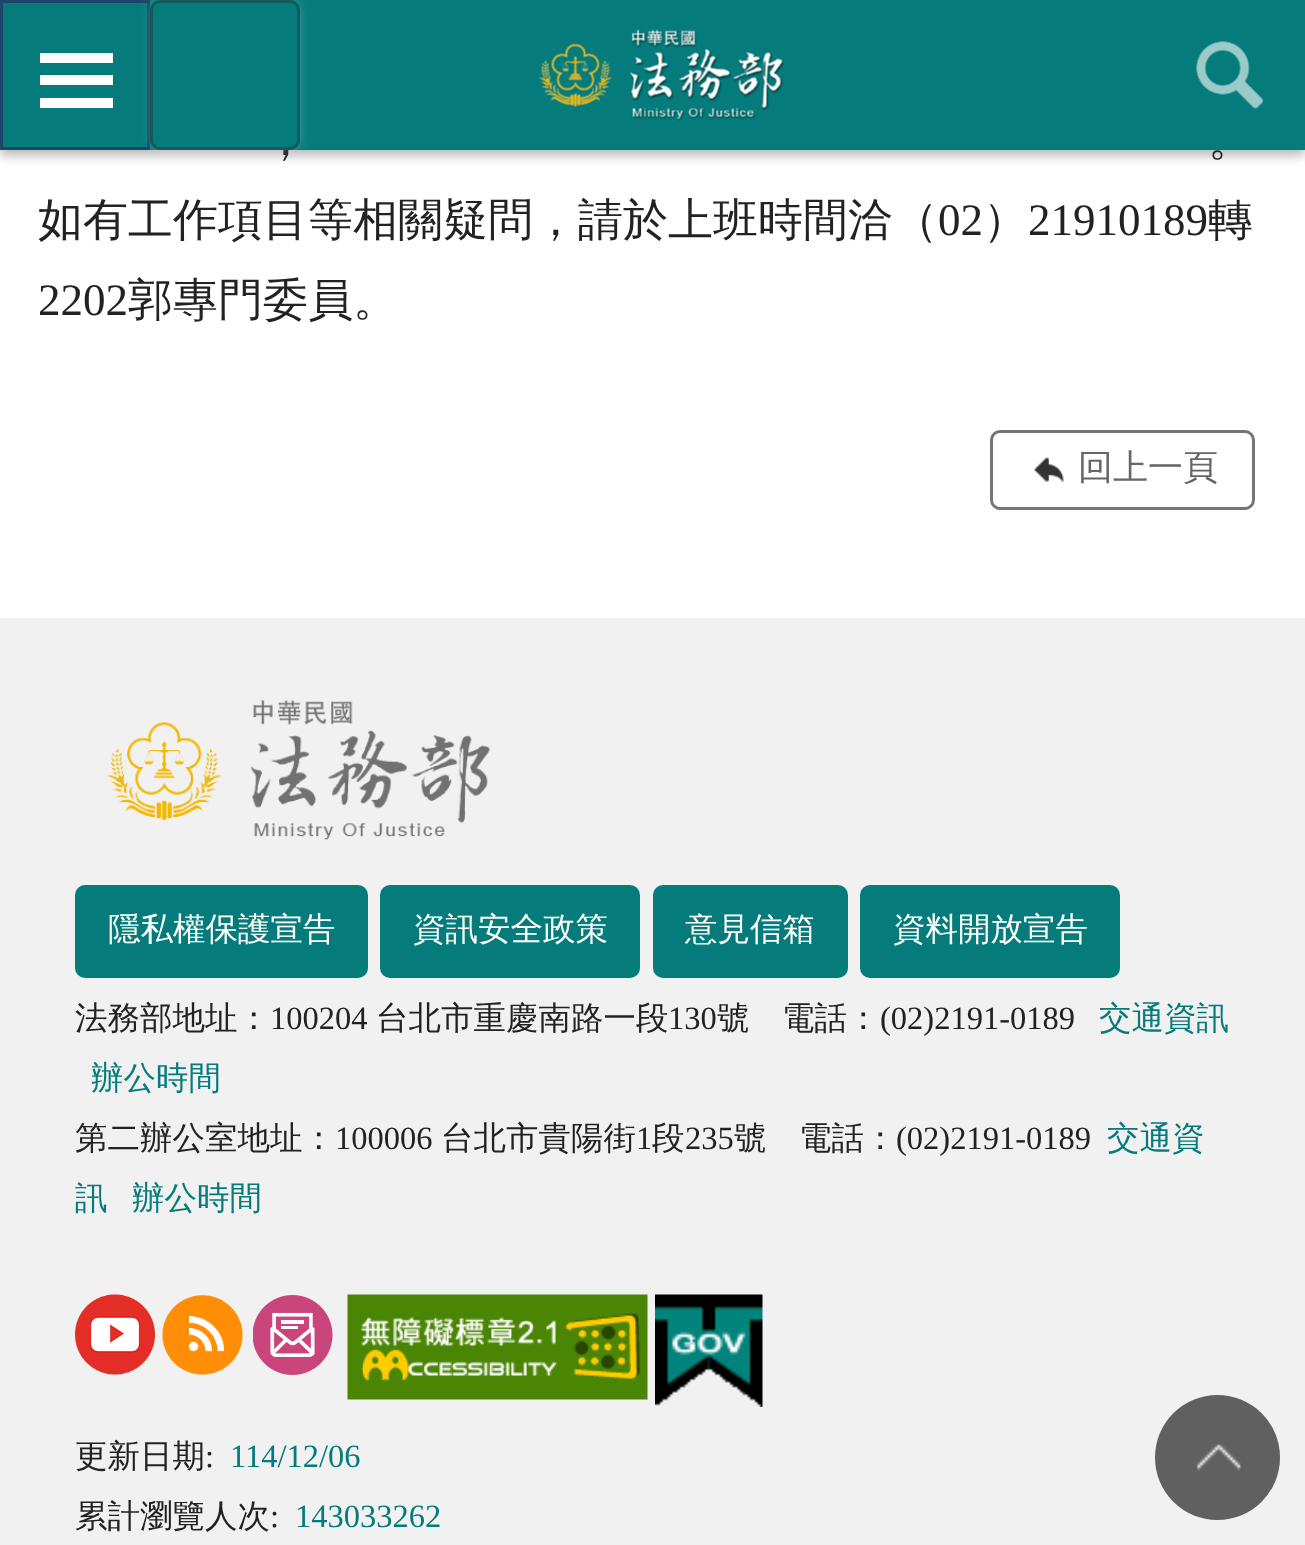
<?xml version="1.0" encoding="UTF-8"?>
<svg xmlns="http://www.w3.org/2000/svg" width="1305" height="1545">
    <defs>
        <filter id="blur1" x="-50%" y="-200%" width="200%" height="500%"><feGaussianBlur stdDeviation="6"/></filter>
        <clipPath id="clip1"><path d="M 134 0 H 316 V 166 H 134 Z M 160 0 H 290 C 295.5 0 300 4.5 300 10 V 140 C 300 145.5 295.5 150 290 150 H 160 C 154.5 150 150 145.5 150 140 V 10 C 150 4.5 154.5 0 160 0 Z" clip-rule="evenodd"/></clipPath>
        <filter id="blur2" x="-50%" y="-200%" width="200%" height="500%"><feGaussianBlur stdDeviation="5"/></filter>
    </defs>
    <rect width="100%" height="100%" fill="#FFFFFF"/>
    <rect x="0" y="5" width="1305" height="150" fill="#000000" fill-opacity="0.3" filter="url(#blur1)"/>
    <text x="263" y="155" font-family="WenQuanYi Zen Hei" font-size="45" font-weight="500" fill="#222222">，</text>
    <rect x="3" y="0" width="1302" height="150" fill="#057B7C"/>
    <rect x="1.5" y="1.5" width="147" height="147" fill="none" stroke="#1D4567" stroke-width="3"/>
    <rect x="40" y="53" width="73" height="10" fill="#FFFFFF"/>
    <rect x="40" y="75" width="73" height="10" fill="#FFFFFF"/>
    <rect x="40" y="98" width="73" height="10" fill="#FFFFFF"/>
    <g clip-path="url(#clip1)">
        <rect x="150" y="0" width="150" height="150" rx="10" fill="#FFFFFF" fill-opacity="0.24" filter="url(#blur2)"/>
    </g>
    <rect x="151.5" y="1.5" width="147" height="147" rx="8.5" fill="none" stroke="#233A3A" stroke-opacity="0.5" stroke-width="3"/>
    <image x="538" y="29" width="246" height="92" href="img_01.png"/>
    <image x="1196" y="41" width="68" height="68" href="img_02.png"/>
    <text x="1208" y="155" font-family="WenQuanYi Zen Hei" font-size="45" font-weight="500" fill="#222222">。</text>
    <text x="38" y="235" font-family="WenQuanYi Zen Hei" font-size="45" font-weight="500" fill="#222222">如有工作項目等相關疑問，請於上班時間洽（</text>
    <text x="938" y="235" font-family="Liberation Serif" font-size="45" fill="#222222">02</text>
    <text x="983" y="235" font-family="WenQuanYi Zen Hei" font-size="45" font-weight="500" fill="#222222">）</text>
    <text x="1028" y="235" font-family="Liberation Serif" font-size="45" fill="#222222">21910189</text>
    <text x="1208" y="235" font-family="WenQuanYi Zen Hei" font-size="45" font-weight="500" fill="#222222">轉</text>
    <text x="38" y="315" font-family="Liberation Serif" font-size="45" fill="#222222">2202</text>
    <text x="128" y="315" font-family="WenQuanYi Zen Hei" font-size="45" font-weight="500" fill="#222222">郭專門委員。</text>
    <rect x="991.5" y="431.5" width="262" height="77" rx="8.5" fill="none" stroke="#757575" stroke-width="3"/>
    <image x="1033" y="457" width="31" height="26" href="img_03.png"/>
    <text x="1078" y="479" font-family="WenQuanYi Zen Hei" font-size="35" font-weight="500" fill="#666666">回上一頁</text>
    <rect x="0" y="618" width="1305" height="927" fill="#F1F1F1"/>
    <image x="107" y="700" width="383" height="140" href="img_04.png"/>
    <rect x="75" y="885" width="293" height="93" rx="10" fill="#057B7C"/>
    <text x="108" y="940" font-family="WenQuanYi Zen Hei" font-size="32.5" font-weight="500" fill="#FFFFFF">隱私權保護宣告</text>
    <rect x="380" y="885" width="260" height="93" rx="10" fill="#057B7C"/>
    <text x="413" y="940" font-family="WenQuanYi Zen Hei" font-size="32.5" font-weight="500" fill="#FFFFFF">資訊安全政策</text>
    <rect x="653" y="885" width="195" height="93" rx="10" fill="#057B7C"/>
    <text x="685" y="940" font-family="WenQuanYi Zen Hei" font-size="32.5" font-weight="500" fill="#FFFFFF">意見信箱</text>
    <rect x="860" y="885" width="260" height="93" rx="10" fill="#057B7C"/>
    <text x="893" y="940" font-family="WenQuanYi Zen Hei" font-size="32.5" font-weight="500" fill="#FFFFFF">資料開放宣告</text>
    <text x="75" y="1029" font-family="WenQuanYi Zen Hei" font-size="32.5" font-weight="500" fill="#222222">法務部地址：</text>
    <text x="270" y="1029" font-family="Liberation Serif" font-size="32.5" fill="#222222">100204</text>
    <text x="376" y="1029" font-family="WenQuanYi Zen Hei" font-size="32.5" font-weight="500" fill="#222222">台北市重慶南路一段</text>
    <text x="668" y="1029" font-family="Liberation Serif" font-size="32.5" fill="#222222">130</text>
    <text x="717" y="1029" font-family="WenQuanYi Zen Hei" font-size="32.5" font-weight="500" fill="#222222">號　電話：</text>
    <text x="880" y="1029" font-family="Liberation Serif" font-size="32.5" fill="#222222">(02)2191-0189</text>
    <text x="1099" y="1029" font-family="WenQuanYi Zen Hei" font-size="32.5" font-weight="500" fill="#057B7C">交通資訊</text>
    <text x="91" y="1089" font-family="WenQuanYi Zen Hei" font-size="32.5" font-weight="500" fill="#057B7C">辦公時間</text>
    <text x="75" y="1149" font-family="WenQuanYi Zen Hei" font-size="32.5" font-weight="500" fill="#222222">第二辦公室地址：</text>
    <text x="335" y="1149" font-family="Liberation Serif" font-size="32.5" fill="#222222">100006</text>
    <text x="441" y="1149" font-family="WenQuanYi Zen Hei" font-size="32.5" font-weight="500" fill="#222222">台北市貴陽街</text>
    <text x="636" y="1149" font-family="Liberation Serif" font-size="32.5" fill="#222222">1</text>
    <text x="652" y="1149" font-family="WenQuanYi Zen Hei" font-size="32.5" font-weight="500" fill="#222222">段</text>
    <text x="685" y="1149" font-family="Liberation Serif" font-size="32.5" fill="#222222">235</text>
    <text x="734" y="1149" font-family="WenQuanYi Zen Hei" font-size="32.5" font-weight="500" fill="#222222">號　電話：</text>
    <text x="896" y="1149" font-family="Liberation Serif" font-size="32.5" fill="#222222">(02)2191-0189</text>
    <text x="1107" y="1149" font-family="WenQuanYi Zen Hei" font-size="32.5" font-weight="500" fill="#057B7C">交通資</text>
    <text x="75" y="1209" font-family="WenQuanYi Zen Hei" font-size="32.5" font-weight="500" fill="#057B7C">訊</text>
    <text x="132" y="1209" font-family="WenQuanYi Zen Hei" font-size="32.5" font-weight="500" fill="#057B7C">辦公時間</text>
    <image x="75" y="1294" width="80" height="81" href="img_05.png"/>
    <image x="162" y="1295" width="81" height="80" href="img_06.png"/>
    <image x="253" y="1295" width="80" height="80" href="img_07.png"/>
    <image x="347" y="1294" width="301" height="106" href="img_08.png"/>
    <image x="655" y="1294" width="108" height="113" href="img_09.png"/>
    <text x="75" y="1467" font-family="WenQuanYi Zen Hei" font-size="32.5" font-weight="500" fill="#222222">更新日期</text>
    <text x="205" y="1467" font-family="Liberation Serif" font-size="32.5" fill="#222222">:</text>
    <text x="230" y="1467" font-family="Liberation Serif" font-size="32.5" fill="#057B7C">114/12/06</text>
    <text x="75" y="1527" font-family="WenQuanYi Zen Hei" font-size="32.5" font-weight="500" fill="#222222">累計瀏覽人次</text>
    <text x="270" y="1527" font-family="Liberation Serif" font-size="32.5" fill="#222222">:</text>
    <text x="295" y="1527" font-family="Liberation Serif" font-size="32.5" fill="#057B7C">143033262</text>
    <circle cx="1217.5" cy="1457.5" r="62.5" fill="#606060"/>
    <image x="1196" y="1444" width="45" height="27" href="img_10.png"/>
</svg>
